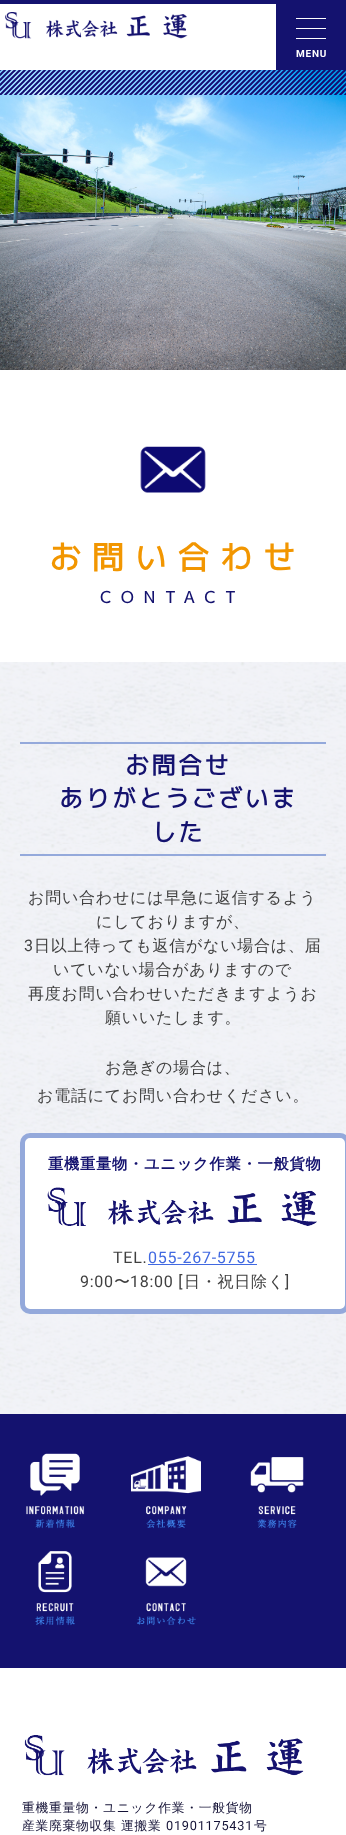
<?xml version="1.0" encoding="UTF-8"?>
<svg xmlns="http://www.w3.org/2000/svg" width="346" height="1835">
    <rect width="100%" height="100%" fill="#FFFFFF"/>
    <rect x="0" y="0" width="276" height="4" fill="#14126F"/>
    <image x="5" y="12" width="183" height="27" href="img_01.png"/>
    <rect x="276" y="0" width="70" height="70" fill="#14126F"/>
    <rect x="296" y="18" width="30" height="1" fill="#FFFFFF"/>
    <rect x="296" y="28" width="30" height="1" fill="#FFFFFF"/>
    <rect x="296" y="38" width="30" height="1" fill="#FFFFFF"/>
    <text x="296" y="57" font-family="Roboto" font-size="10" font-weight="700" letter-spacing="0.75" fill="#FFFFFF">MENU</text>
    <image x="0" y="70" width="346" height="300" href="img_02.png"/>
    <image x="0" y="70" width="346" height="25" href="img_03.png"/>
    <image x="140" y="446" width="66" height="47" href="img_04.png"/>
    <text x="49" y="569" font-family="'M PLUS 1p'" font-size="32" font-weight="700" letter-spacing="0.75" fill="#F29600">お 問 い 合 わ せ</text>
    <text x="100" y="603" font-family="'M PLUS 1p'" font-size="16" font-weight="700" letter-spacing="10" fill="#14126F">CONTACT</text>
    <image x="0" y="662" width="346" height="752" href="img_05.png"/>
    <rect x="20" y="742" width="306" height="2" fill="#94A9DB"/>
    <rect x="20" y="854" width="306" height="2" fill="#94A9DB"/>
    <text x="125" y="774" font-family="'M PLUS 1p'" font-size="24" font-weight="700" letter-spacing="2.5" fill="#14126F">お問合せ</text>
    <text x="59" y="807" font-family="'M PLUS 1p'" font-size="24" font-weight="700" letter-spacing="2.5" fill="#14126F">ありがとうございま</text>
    <text x="152" y="841" font-family="'M PLUS 1p'" font-size="24" font-weight="700" letter-spacing="2.5" fill="#14126F">した</text>
    <text x="28" y="903" font-family="WenQuanYi Zen Hei" font-size="16" font-weight="500" letter-spacing="0.75" fill="#404040">お問い合わせには早急に返信するよう</text>
    <text x="96" y="927" font-family="WenQuanYi Zen Hei" font-size="16" font-weight="500" letter-spacing="0.75" fill="#404040">にしておりますが、</text>
    <text x="24" y="951" font-family="Roboto" font-size="16" letter-spacing="0.75" fill="#404040">3</text>
    <text x="34" y="951" font-family="WenQuanYi Zen Hei" font-size="16" font-weight="500" letter-spacing="0.75" fill="#404040">日以上待っても返信がない場合は、届</text>
    <text x="53" y="975" font-family="WenQuanYi Zen Hei" font-size="16" font-weight="500" letter-spacing="0.75" fill="#404040">いていない場合がありますので</text>
    <text x="28" y="999" font-family="WenQuanYi Zen Hei" font-size="16" font-weight="500" letter-spacing="0.75" fill="#404040">再度お問い合わせいただきますようお</text>
    <text x="105" y="1023" font-family="WenQuanYi Zen Hei" font-size="16" font-weight="500" letter-spacing="0.75" fill="#404040">願いいたします。</text>
    <text x="105" y="1073" font-family="WenQuanYi Zen Hei" font-size="16" font-weight="500" letter-spacing="0.75" fill="#404040">お急ぎの場合は、</text>
    <text x="37" y="1101" font-family="WenQuanYi Zen Hei" font-size="16" font-weight="500" letter-spacing="0.75" fill="#404040">お電話にてお問い合わせください。</text>
    <rect x="22.5" y="1135.5" width="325" height="176" rx="7.5" fill="#FFFFFF" stroke="#94A9DB" stroke-width="5"/>
    <text x="48" y="1169" font-family="WenQuanYi Zen Hei" font-size="15.25" font-weight="700" letter-spacing="0.75" fill="#14126F">重機重量物・ユニック作業・一般貨物</text>
    <image x="47" y="1187" width="270" height="39" href="img_06.png"/>
    <text x="113" y="1263" font-family="Roboto" font-size="16" letter-spacing="0.75" fill="#404040">TEL.</text>
    <text x="148" y="1263" font-family="Roboto" font-size="16" letter-spacing="0.75" fill="#4169E1">055-267-5755</text>
    <rect x="148" y="1264" width="109" height="1" fill="#4169E1"/>
    <text x="80" y="1287" font-family="Roboto" font-size="16" letter-spacing="0.75" fill="#404040">9:00</text>
    <text x="114" y="1287" font-family="WenQuanYi Zen Hei" font-size="16" font-weight="500" letter-spacing="0.75" fill="#404040">〜</text>
    <text x="130" y="1287" font-family="Roboto" font-size="16" letter-spacing="0.75" fill="#404040">18:00 [</text>
    <text x="184" y="1287" font-family="WenQuanYi Zen Hei" font-size="16" font-weight="500" letter-spacing="0.75" fill="#404040">日・祝日除く</text>
    <text x="285" y="1287" font-family="Roboto" font-size="16" letter-spacing="0.75" fill="#404040">]</text>
    <rect x="0" y="1414" width="346" height="254" fill="#14126F"/>
    <image x="26" y="1453" width="59" height="76" href="img_07.png"/>
    <image x="131" y="1456" width="70" height="73" href="img_08.png"/>
    <image x="250" y="1457" width="54" height="72" href="img_09.png"/>
    <image x="35" y="1551" width="40" height="75" href="img_10.png"/>
    <image x="137" y="1557" width="59" height="69" href="img_11.png"/>
    <image x="24" y="1735" width="280" height="41" href="img_12.png"/>
    <text font-family="WenQuanYi Zen Hei" font-size="12.75" font-weight="500" letter-spacing="0.75" fill="#141236">
        <tspan x="22" y="1812">重機重量物・ユニック作業・一般貨物</tspan>
        <tspan x="22" y="1830">産業廃棄物収集 運搬業</tspan>
    </text>
    <text x="166" y="1830" font-family="Roboto" font-size="12.75" letter-spacing="0.75" fill="#141236">01901175431</text>
    <text x="254" y="1830" font-family="WenQuanYi Zen Hei" font-size="12.75" font-weight="500" letter-spacing="0.75" fill="#141236">号</text>
</svg>
